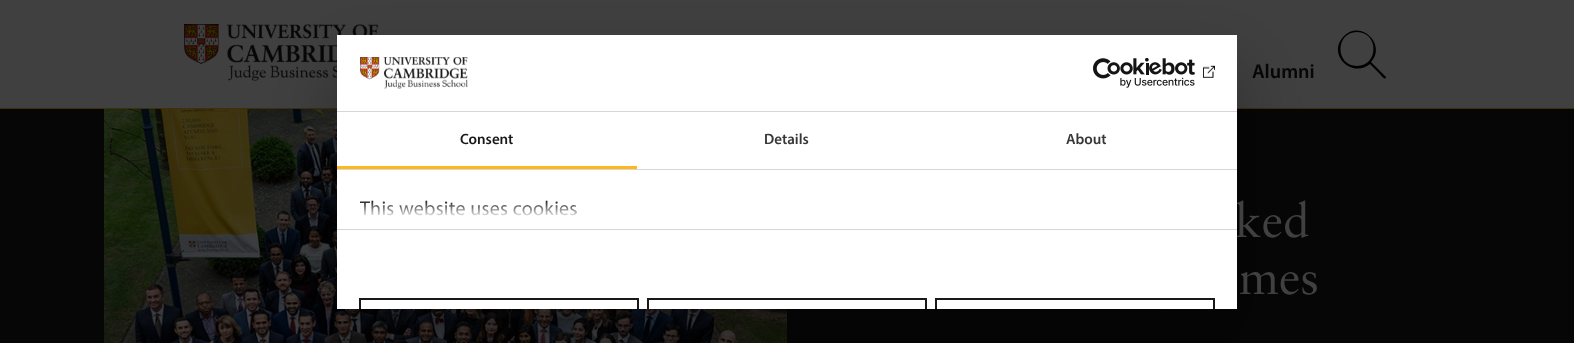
<?xml version="1.0" encoding="UTF-8"?>
<svg xmlns="http://www.w3.org/2000/svg" width="1574" height="343">
    <defs>
        <filter id="blur1" x="-50%" y="-200%" width="200%" height="500%"><feGaussianBlur stdDeviation="34"/></filter>
        <linearGradient id="g1" gradientUnits="userSpaceOnUse" x1="777" y1="229" x2="777" y2="200"><stop offset="0" stop-color="#FFFFFF"/><stop offset="0.5" stop-color="#FFFFFF" stop-opacity="0.8"/><stop offset="1" stop-color="#FFFFFF" stop-opacity="0"/></linearGradient>
        <clipPath id="clip1"><rect x="337" y="35" width="900" height="274"/></clipPath>
    </defs>
    <rect width="100%" height="100%" fill="#404040"/>
    <rect x="0" y="108" width="1574" height="1" fill="#402E07"/>
    <image x="184" y="24" width="195" height="57" href="img_04.png"/>
    <path d="M 1386 77 L 1371 62 C 1387 45 1361 19 1344 36 C 1326 54 1352 79 1370 64 L 1379 73 C 1380 74 1384 80 1386 78 Z M 1357 66 C 1335 66 1335 32 1357 32 C 1379 32 1379 66 1357 66 Z" fill="#000000"/>
    <rect x="0" y="109" width="1574" height="234" fill="#070606"/>
    <image x="104" y="109" width="683" height="234" href="img_05.png"/>
    <rect x="337" y="67" width="900" height="274" fill="#000000" fill-opacity="0.3" filter="url(#blur1)"/>
    <text x="1235" y="237" font-family="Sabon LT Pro" font-size="48" fill="#404040">ked</text>
    <rect x="337" y="35" width="900" height="274" fill="#FFFFFF"/>
    <rect x="337" y="111" width="900" height="1" fill="#D6D6D6"/>
    <image x="360" y="57" width="108" height="32" href="img_01.png"/>
    <image x="1093" y="58" width="102" height="30" href="img_02.png"/>
    <image x="1203" y="65" width="12" height="13" href="img_03.png"/>
    <rect x="337" y="169" width="900" height="1" fill="#D6D6D6"/>
    <rect x="337" y="166" width="300" height="3" fill="#FFB81C"/>
    <text x="460" y="144" font-family="Myriad" font-size="15" font-weight="600" fill="#1A1819">Consent</text>
    <text x="764" y="144" font-family="Myriad" font-size="15" font-weight="600" fill="#373737">Details</text>
    <text x="1066" y="144" font-family="Myriad" font-size="15" font-weight="600" fill="#373737">About</text>
    <rect x="337" y="229" width="900" height="1" fill="#D6D6D6"/>
    <text x="360" y="215" font-family="Myriad" font-size="20" letter-spacing="0.25" fill="#141414">This website uses cookies</text>
    <rect x="359" y="201" width="217" height="15" fill="url(#g1)"/>
    <g clip-path="url(#clip1)">
        <rect x="360" y="299" width="278" height="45" fill="none" stroke="#1A1819" stroke-width="2"/>
        <rect x="648" y="299" width="278" height="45" fill="none" stroke="#1A1819" stroke-width="2"/>
        <rect x="936" y="299" width="278" height="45" fill="none" stroke="#1A1819" stroke-width="2"/>
    </g>
    <text x="1252" y="78" font-family="Myriad" font-size="20" font-weight="600" fill="#070606">Alumni</text>
    <text x="1239" y="294" font-family="Sabon LT Pro" font-size="48" fill="#404040">mes</text>
</svg>
